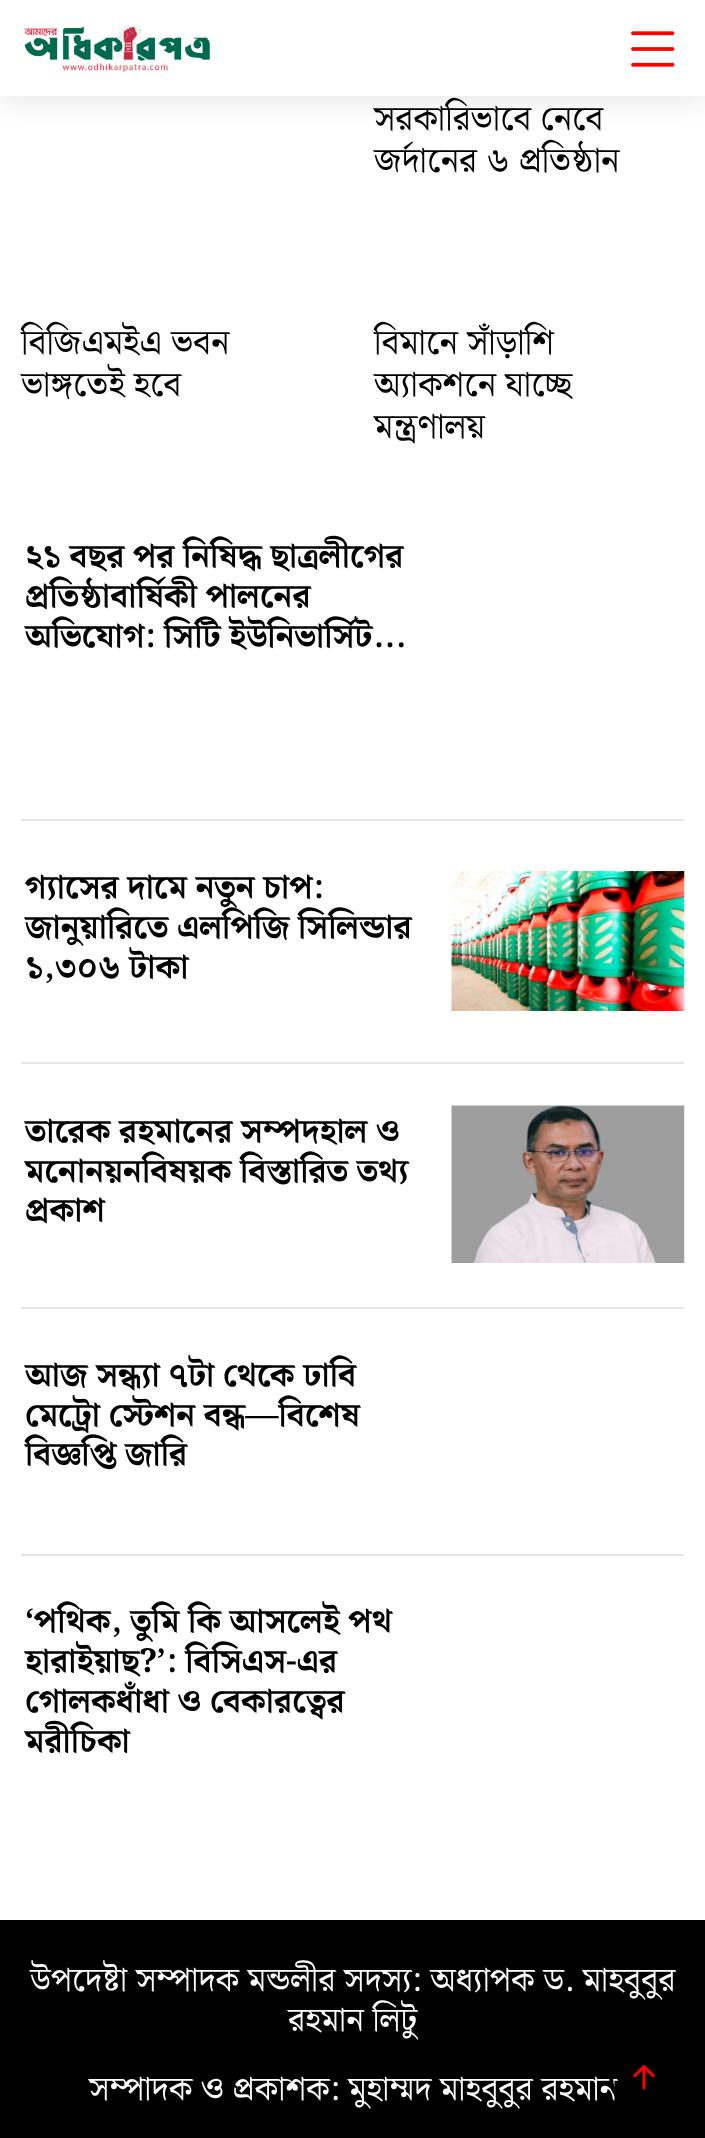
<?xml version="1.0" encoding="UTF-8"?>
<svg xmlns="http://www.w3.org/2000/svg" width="705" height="2138">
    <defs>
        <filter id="blur1" x="-50%" y="-200%" width="200%" height="500%"><feGaussianBlur stdDeviation="13"/></filter>
    </defs>
    <rect width="100%" height="100%" fill="#FFFFFF"/>
    <rect x="0" y="4" width="705" height="96" fill="#000000" fill-opacity="0.1" filter="url(#blur1)"/>
    <rect x="0" y="0" width="705" height="96" fill="#FFFFFF"/>
    <image x="24" y="25" width="187" height="48" href="img_01.png"/>
    <image x="631" y="31" width="44" height="36" href="img_02.png"/>
    <text font-family="Noto Serif Bengali" font-size="35" fill="#000000">
        <tspan x="374" y="130">সরকারিভাবে নেবে</tspan>
        <tspan x="374" y="172">জর্দানের ৬ প্রতিষ্ঠান</tspan>
    </text>
    <text font-family="Noto Serif Bengali" font-size="35" fill="#000000">
        <tspan x="21" y="354">বিজিএমইএ ভবন</tspan>
        <tspan x="21" y="396">ভাঙ্গতেই হবে</tspan>
    </text>
    <text font-family="Noto Serif Bengali" font-size="35" fill="#000000">
        <tspan x="374" y="354">বিমানে সাঁড়াশি</tspan>
        <tspan x="374" y="396">অ্যাকশনে যাচ্ছে</tspan>
        <tspan x="374" y="438">মন্ত্রণালয়</tspan>
    </text>
    <rect x="21" y="819" width="663" height="2" fill="#E6E6E6"/>
    <text font-family="Noto Serif Bengali" font-size="33.25" font-weight="700" fill="#000000">
        <tspan x="25" y="567">২১ বছর পর নিষিদ্ধ ছাত্রলীগের</tspan>
        <tspan x="25" y="607">প্রতিষ্ঠাবার্ষিকী পালনের</tspan>
        <tspan x="25" y="647">অভিযোগ: সিটি ইউনিভার্সিট...</tspan>
    </text>
    <rect x="21" y="1062" width="663" height="2" fill="#E6E6E6"/>
    <text font-family="Noto Serif Bengali" font-size="33.25" font-weight="700" fill="#000000">
        <tspan x="25" y="898">গ্যাসের দামে নতুন চাপ:</tspan>
        <tspan x="25" y="938">জানুয়ারিতে এলপিজি সিলিন্ডার</tspan>
        <tspan x="25" y="978">১,৩০৬ টাকা</tspan>
    </text>
    <image x="451" y="869" width="234" height="147" href="img_03.png"/>
    <rect x="21" y="1307" width="663" height="2" fill="#E6E6E6"/>
    <text font-family="Noto Serif Bengali" font-size="33.25" font-weight="700" fill="#000000">
        <tspan x="25" y="1142">তারেক রহমানের সম্পদহাল ও</tspan>
        <tspan x="25" y="1182">মনোনয়নবিষয়ক বিস্তারিত তথ্য</tspan>
        <tspan x="25" y="1221">প্রকাশ</tspan>
    </text>
    <image x="451" y="1105" width="234" height="158" href="img_04.png"/>
    <rect x="21" y="1554" width="663" height="2" fill="#E6E6E6"/>
    <text font-family="Noto Serif Bengali" font-size="33.25" font-weight="700" fill="#000000">
        <tspan x="25" y="1386">আজ সন্ধ্যা ৭টা থেকে ঢাবি</tspan>
        <tspan x="25" y="1426">মেট্রো স্টেশন বন্ধ—বিশেষ</tspan>
        <tspan x="25" y="1465">বিজ্ঞপ্তি জারি</tspan>
    </text>
    <text font-family="Noto Serif Bengali" font-size="33.25" font-weight="700" fill="#000000">
        <tspan x="25" y="1632">‘পথিক, তুমি কি আসলেই পথ</tspan>
        <tspan x="25" y="1672">হারাইয়াছ?’: বিসিএস-এর</tspan>
        <tspan x="25" y="1712">গোলকধাঁধা ও বেকারত্বের</tspan>
        <tspan x="25" y="1752">মরীচিকা</tspan>
    </text>
    <rect x="0" y="1920" width="705" height="218" fill="#000000"/>
    <text x="30" y="1991" font-family="Noto Serif Bengali" font-size="33.6" fill="#FFFFFF">উপদেষ্টা সম্পাদক মন্ডলীর সদস্য: অধ্যাপক ড. মাহবুবুর</text>
    <text x="288" y="2031" font-family="Noto Serif Bengali" font-size="33.6" fill="#FFFFFF">রহমান লিটু</text>
    <text x="89" y="2100" font-family="Noto Serif Bengali" font-size="33.6" fill="#FFFFFF">সম্পাদক ও প্রকাশক: মুহাম্মদ মাহবুবুর রহমান</text>
    <circle cx="644" cy="2077" r="33" fill="none" stroke="#000000" stroke-width="4"/>
    <image x="633" y="2065" width="22" height="25" href="img_05.png"/>
</svg>
